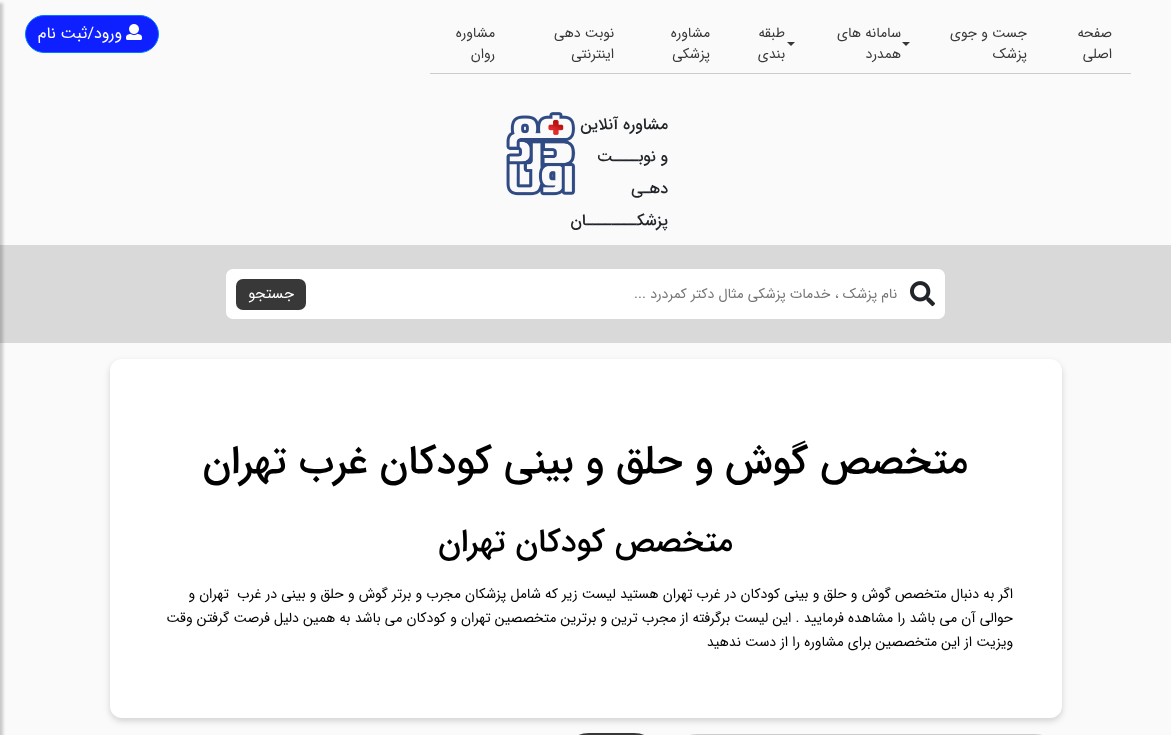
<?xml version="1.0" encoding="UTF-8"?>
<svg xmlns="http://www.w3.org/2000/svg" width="1171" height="735">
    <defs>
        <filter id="blur1" x="-50%" y="-200%" width="200%" height="500%"><feGaussianBlur stdDeviation="1.5"/></filter>
        <filter id="blur2" x="-50%" y="-200%" width="200%" height="500%"><feGaussianBlur stdDeviation="3"/></filter>
    </defs>
    <rect width="100%" height="100%" fill="#FAFAFA"/>
    <rect x="430" y="73" width="701" height="1" fill="#CCCCCC"/>
    <text font-family="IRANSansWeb" font-size="14" direction="rtl" fill="#383838">
        <tspan x="1112" y="37">صفحه</tspan>
        <tspan x="1112" y="58">اصلی</tspan>
    </text>
    <text font-family="IRANSansWeb" font-size="14" direction="rtl" fill="#383838">
        <tspan x="1027" y="37">جست و جوی</tspan>
        <tspan x="1027" y="58">پزشک</tspan>
    </text>
    <text x="901" y="37" font-family="IRANSansWeb" font-size="14" direction="rtl" fill="#383838">سامانه های</text>
    <path d="M 902 42 H 910 L 906 46 Z" fill="#383838"/>
    <text x="901" y="58" font-family="IRANSansWeb" font-size="14" direction="rtl" fill="#383838">همدرد</text>
    <text x="785" y="37" font-family="IRANSansWeb" font-size="14" direction="rtl" fill="#383838">طبقه</text>
    <path d="M 787 42 H 795 L 791 46 Z" fill="#383838"/>
    <text x="785" y="58" font-family="IRANSansWeb" font-size="14" direction="rtl" fill="#383838">بندی</text>
    <text font-family="IRANSansWeb" font-size="14" direction="rtl" fill="#383838">
        <tspan x="710" y="37">مشاوره</tspan>
        <tspan x="710" y="58">پزشکی</tspan>
    </text>
    <text font-family="IRANSansWeb" font-size="14" direction="rtl" fill="#383838">
        <tspan x="614" y="37">نوبت دهی</tspan>
        <tspan x="614" y="58">اینترنتی</tspan>
    </text>
    <text font-family="IRANSansWeb" font-size="14" direction="rtl" fill="#383838">
        <tspan x="495" y="37">مشاوره</tspan>
        <tspan x="495" y="58">روان</tspan>
    </text>
    <rect x="25.5" y="15.5" width="133" height="37" rx="18.5" fill="#0E20FF" stroke="#007BFF"/>
    <image x="126" y="24" width="16" height="16" href="img_01.png"/>
    <text x="122" y="38" font-family="IRANSansWeb" font-size="16" direction="rtl" fill="#FFFFFF">ورود/ثبت نام</text>
    <rect x="0" y="245" width="1171" height="98" fill="#D9D9D9"/>
    <rect x="-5" y="3" width="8" height="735" fill="#000000" fill-opacity="0.2" filter="url(#blur1)"/>
    <text x="668" y="129" font-family="IRANSansWeb" font-size="16" font-weight="500" direction="rtl" fill="#212529">مشاوره آنلاین</text>
    <text x="668" y="161" font-family="IRANSansWeb" font-size="16" font-weight="500" direction="rtl" fill="#212529">و نوبــــت</text>
    <text x="668" y="193" font-family="IRANSansWeb" font-size="16" font-weight="500" direction="rtl" fill="#212529">دهـی</text>
    <text x="668" y="225" font-family="IRANSansWeb" font-size="16" font-weight="500" direction="rtl" fill="#212529">پزشکــــــــان</text>
    <image x="506" y="112" width="70" height="84" href="img_02.png"/>
    <rect x="226" y="269" width="719" height="50" rx="7" fill="#FFFFFF"/>
    <image x="910" y="281" width="25" height="26" href="img_03.png"/>
    <text x="897" y="298" font-family="IRANSansWeb" font-size="14" direction="rtl" fill="#757575">نام پزشک ، خدمات پزشکی مثال دکتر کمردرد ...</text>
    <rect x="236" y="279" width="70" height="31" rx="7" fill="#383838"/>
    <text x="294" y="298" font-family="IRANSansWeb" font-size="15" direction="rtl" fill="#FFFFFF">جستجو</text>
    <rect x="110" y="362" width="952" height="359" rx="12" fill="#000000" fill-opacity="0.16" filter="url(#blur2)"/>
    <rect x="110" y="359" width="952" height="359" rx="12" fill="#FFFFFF"/>
    <text x="968" y="473" font-family="IRANSansWeb" font-size="40" font-weight="500" direction="rtl" fill="#000000">متخصص گوش و حلق و بینی کودکان غرب تهران</text>
    <text x="733" y="551" font-family="IRANSansWeb" font-size="32" font-weight="500" direction="rtl" fill="#000000">متخصص کودکان تهران</text>
    <text font-family="IRANSansWeb" font-size="14" direction="rtl" fill="#000000" xml:space="preserve"><tspan x="1013" y="598">اگر به دنبال متخصص گوش و حلق و بینی کودکان در غرب تهران هستید لیست زیر که شامل پزشکان مجرب و برتر گوش و حلق و بینی در غرب  تهران و</tspan><tspan x="1013" y="622">حوالی آن می باشد را مشاهده فرمایید . این لیست برگرفته از مجرب ترین و برترین متخصصین تهران و کودکان می باشد به همین دلیل فرصت گرفتن وقت</tspan><tspan x="1013" y="646">ویزیت از این متخصصین برای مشاوره را از دست ندهید</tspan></text>
    <rect x="681.5" y="734.5" width="369" height="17" rx="15.5" fill="none" stroke="#CCCCCC"/>
    <rect x="572" y="733" width="79" height="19" rx="17" fill="#383838"/>
</svg>
